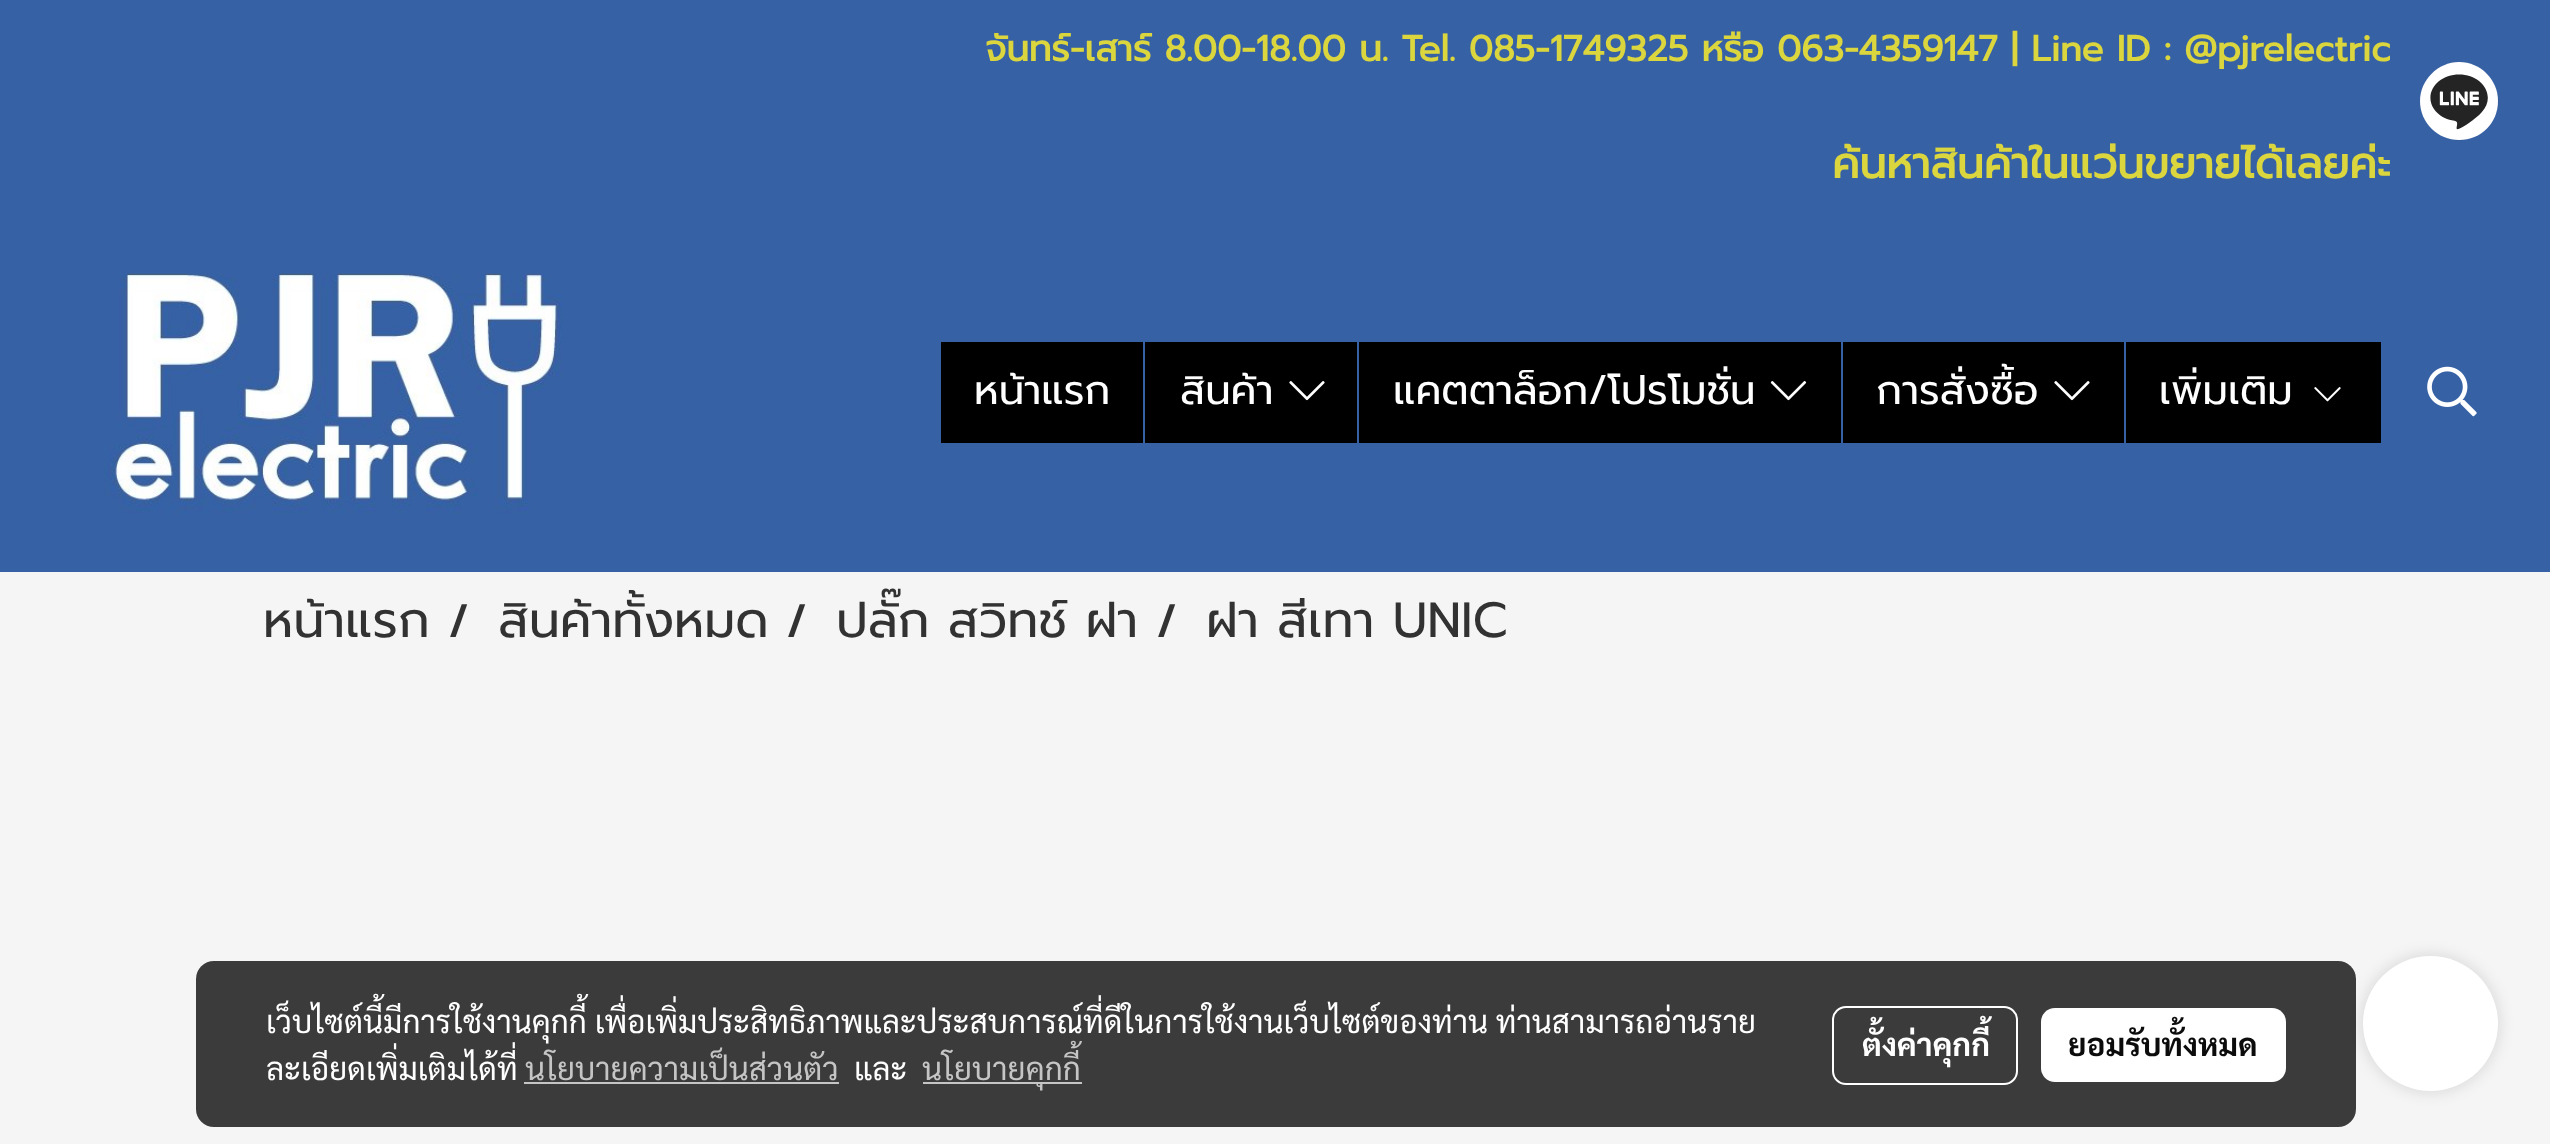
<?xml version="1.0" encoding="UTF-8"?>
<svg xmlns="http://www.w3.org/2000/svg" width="2550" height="1144">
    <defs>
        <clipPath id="clip1"><rect x="986" y="9" width="1404" height="194"/></clipPath>
        <filter id="blur1" x="-50%" y="-200%" width="200%" height="500%"><feGaussianBlur stdDeviation="8"/></filter>
    </defs>
    <rect width="100%" height="100%" fill="#F5F5F5"/>
    <rect x="0" y="0" width="2550" height="572" fill="#3761A5"/>
    <g clip-path="url(#clip1)">
        <text x="985" y="61" font-family="Prompt" font-size="36" font-weight="700" fill="#DBD63D">จันทร์-เสาร์ 8.00-18.00 น. Tel. 085-1749325 หรือ 063-4359147 | Line ID : @pjrelectric</text>
    </g>
    <text x="1832" y="178" font-family="Prompt" font-size="42.75" font-weight="700" fill="#DBD63D">ค้นหาสินค้าในแว่นขยายได้เลยค่ะ</text>
    <path d="M 2459 62 C 2438 62 2420 80 2420 101 C 2420 123 2438 140 2459 140 C 2481 140 2498 123 2498 101 C 2498 80 2481 62 2459 62 Z" fill="#FFFFFF"/>
    <image x="2430" y="74" width="69" height="67" href="img_01.png"/>
    <image x="104" y="273" width="459" height="241" href="img_02.png"/>
    <rect x="941" y="342" width="202" height="101" fill="#000000"/>
    <text x="974" y="404" font-family="Prompt" font-size="40.5" fill="#FFFFFF">หน้าแรก</text>
    <rect x="1145" y="342" width="212" height="101" fill="#000000"/>
    <text x="1180" y="404" font-family="Prompt" font-size="40.5" fill="#FFFFFF">สินค้า</text>
    <image x="1289" y="381" width="36" height="20" href="img_03.png"/>
    <rect x="1359" y="342" width="482" height="101" fill="#000000"/>
    <text x="1393" y="404" font-family="Prompt" font-size="40.5" fill="#FFFFFF">แคตตาล็อก/โปรโมชั่น</text>
    <image x="1770" y="381" width="37" height="20" href="img_04.png"/>
    <rect x="1843" y="342" width="281" height="101" fill="#000000"/>
    <text x="1876" y="404" font-family="Prompt" font-size="40.5" fill="#FFFFFF">การสั่งซื้อ</text>
    <image x="2054" y="381" width="36" height="20" href="img_03.png"/>
    <rect x="2126" y="342" width="255" height="101" fill="#000000"/>
    <text x="2159" y="404" font-family="Prompt" font-size="40.5" fill="#FFFFFF">เพิ่มเติม</text>
    <image x="2314" y="387" width="27" height="15" href="img_05.png"/>
    <image x="2427" y="366" width="50" height="51" href="img_06.png"/>
    <text x="263" y="637" font-family="Prompt" font-size="49.5" fill="#323232">หน้าแรก</text>
    <text x="448" y="637" font-family="Kanit" font-size="49.5" fill="#323232">/</text>
    <text x="498" y="637" font-family="Prompt" font-size="49.5" fill="#323232">สินค้าทั้งหมด</text>
    <text x="786" y="637" font-family="Kanit" font-size="49.5" fill="#323232">/</text>
    <text x="836" y="637" font-family="Prompt" font-size="49.5" fill="#323232">ปลั๊ก สวิทช์ ฝา</text>
    <text x="1156" y="637" font-family="Kanit" font-size="49.5" fill="#323232">/</text>
    <text x="1206" y="637" font-family="Prompt" font-size="49.5" fill="#323232">ฝา สีเทา UNIC</text>
    <rect x="2363" y="956" width="135" height="135" rx="67.5" fill="#000000" fill-opacity="0.14" filter="url(#blur1)"/>
    <rect x="196" y="961" width="2160" height="166" rx="18" fill="#000000" fill-opacity="0.76"/>
    <text font-family="Sarabun" font-size="31.5" fill="#FFFFFF">
        <tspan x="266" y="1033">เว็บไซต์นี้มีการใช้งานคุกกี้ เพื่อเพิ่มประสิทธิภาพและประสบการณ์ที่ดีในการใช้งานเว็บไซต์ของท่าน ท่านสามารถอ่านราย</tspan>
        <tspan x="266" y="1080">ละเอียดเพิ่มเติมได้ที่</tspan>
    </text>
    <text x="525" y="1080" font-family="Sarabun" font-size="31.5" fill="#C5C5C5">นโยบายความเป็นส่วนตัว</text>
    <rect x="524" y="1082" width="315" height="2" fill="#C5C5C5"/>
    <text x="854" y="1080" font-family="Sarabun" font-size="31.5" fill="#FFFFFF">และ</text>
    <rect x="923" y="1082" width="159" height="2" fill="#C5C5C5"/>
    <text x="922" y="1080" font-family="Sarabun" font-size="31.5" fill="#C5C5C5">นโยบายคุกกี้</text>
    <rect x="1833" y="1007" width="184" height="77" rx="13" fill="none" stroke="#FFFFFF" stroke-width="2"/>
    <text x="1862" y="1056" font-family="Sarabun" font-size="31.5" font-weight="700" fill="#FFFFFF">ตั้งค่าคุกกี้</text>
    <rect x="2041" y="1008" width="245" height="74" rx="14" fill="#FFFFFF"/>
    <text x="2068" y="1056" font-family="Sarabun" font-size="31.5" font-weight="700" fill="#0C0C0C">ยอมรับทั้งหมด</text>
    <circle cx="2430.5" cy="1023.5" r="67.5" fill="#FFFFFF"/>
</svg>
